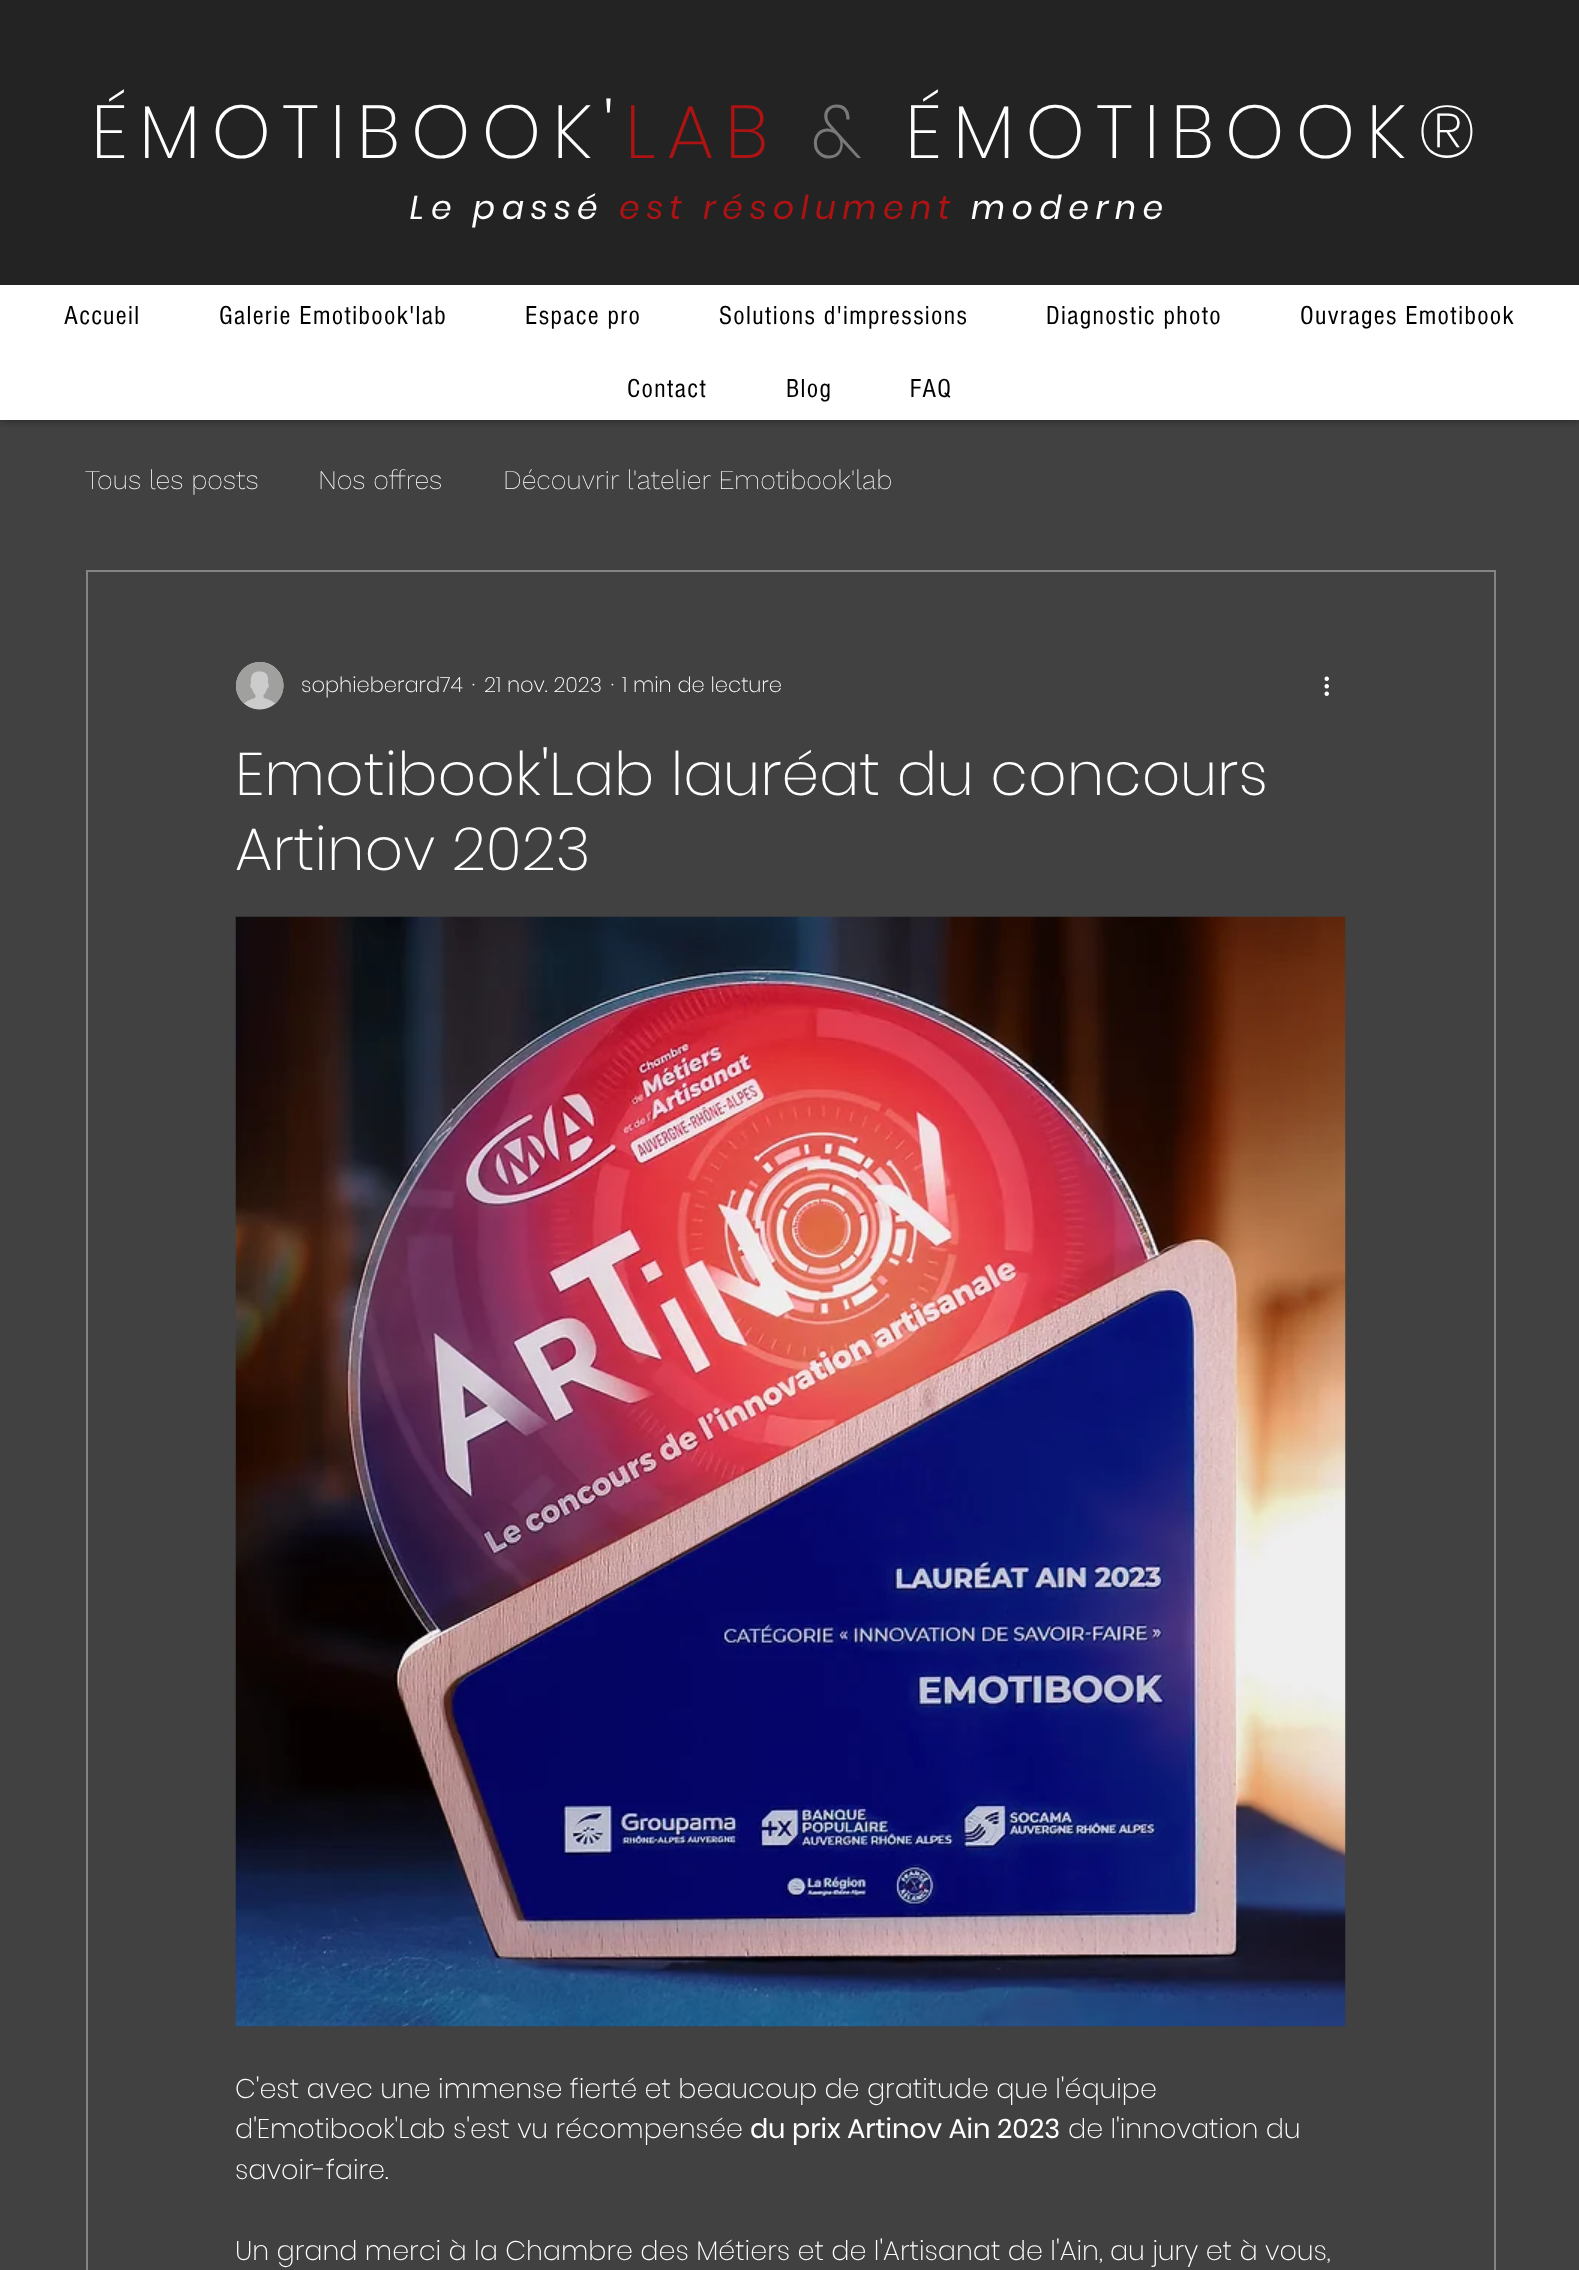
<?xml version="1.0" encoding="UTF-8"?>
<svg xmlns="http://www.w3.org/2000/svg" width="1579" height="2270">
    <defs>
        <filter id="blur1" x="-50%" y="-200%" width="200%" height="500%"><feGaussianBlur stdDeviation="4"/></filter>
    </defs>
    <rect width="100%" height="100%" fill="#414141"/>
    <rect x="0" y="0" width="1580" height="420" fill="#000000" fill-opacity="0.5" filter="url(#blur1)"/>
    <rect x="0" y="0" width="1579" height="285" fill="#242323"/>
    <text x="91" y="158" font-family="Poppins" font-size="75" font-weight="200" letter-spacing="11.25" fill="#FFFFFF">ÉMOTIBOOK'</text>
    <text x="625" y="158" font-family="Poppins" font-size="75" font-weight="200" letter-spacing="11.25" fill="#AE1313">LAB</text>
    <text x="811" y="158" font-family="Poppins" font-size="75" font-weight="200" letter-spacing="11.25" fill="#7A7878">&amp;</text>
    <text x="905" y="158" font-family="Poppins" font-size="75" font-weight="200" letter-spacing="11.25" fill="#FFFFFF">ÉMOTIBOOK®</text>
    <text x="410" y="219" font-family="Poppins" font-size="33" font-style="italic" letter-spacing="6.6" fill="#FFFFFF">Le passé</text>
    <text x="619" y="219" font-family="Poppins" font-size="33" font-style="italic" letter-spacing="6.6" fill="#AE1313">est résolument</text>
    <text x="971" y="219" font-family="Poppins" font-size="33" font-style="italic" letter-spacing="6.6" fill="#FFFFFF">moderne</text>
    <rect x="0" y="285" width="1579" height="135" fill="#FFFFFF"/>
    <text x="64" y="324" font-family="'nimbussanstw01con'" font-size="27" letter-spacing="1.35" fill="#000000">Accueil</text>
    <text x="219" y="324" font-family="'nimbussanstw01con'" font-size="27" letter-spacing="1.35" fill="#000000">Galerie Emotibook'lab</text>
    <text x="525" y="324" font-family="'nimbussanstw01con'" font-size="27" letter-spacing="1.35" fill="#000000">Espace pro</text>
    <text x="719" y="324" font-family="'nimbussanstw01con'" font-size="27" letter-spacing="1.35" fill="#000000">Solutions d'impressions</text>
    <text x="1046" y="324" font-family="'nimbussanstw01con'" font-size="27" letter-spacing="1.35" fill="#000000">Diagnostic photo</text>
    <text x="1300" y="324" font-family="'nimbussanstw01con'" font-size="27" letter-spacing="1.35" fill="#000000">Ouvrages Emotibook</text>
    <text x="627" y="397" font-family="'nimbussanstw01con'" font-size="27" letter-spacing="1.35" fill="#000000">Contact</text>
    <text x="786" y="397" font-family="'nimbussanstw01con'" font-size="27" letter-spacing="1.35" fill="#000000">Blog</text>
    <text x="910" y="397" font-family="'nimbussanstw01con'" font-size="27" letter-spacing="1.35" fill="#000000">FAQ</text>
    <text x="85" y="489" font-family="Work Sans" font-size="27" font-weight="200" fill="#FFFFFF">Tous les posts</text>
    <text x="318" y="489" font-family="Work Sans" font-size="27" font-weight="200" fill="#FFFFFF">Nos offres</text>
    <text x="503" y="489" font-family="Work Sans" font-size="27" font-weight="200" fill="#FFFFFF">Découvrir l'atelier Emotibook'lab</text>
    <rect x="87" y="571" width="1408" height="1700" fill="none" stroke="#858484" stroke-width="2"/>
    <image x="236" y="662" width="48" height="48" href="img_01.png"/>
    <text x="301" y="692" font-family="Poppins" font-size="21" font-weight="200" fill="#FFFFFF">sophieberard74</text>
    <text x="472" y="692" font-family="Poppins" font-size="21" font-weight="200" fill="#FFFFFF">·</text>
    <text x="484" y="692" font-family="Poppins" font-size="21" font-weight="200" fill="#FFFFFF">21 nov. 2023</text>
    <text x="611" y="692" font-family="Poppins" font-size="21" font-weight="200" fill="#FFFFFF">·</text>
    <text x="622" y="692" font-family="Poppins" font-size="21" font-weight="200" fill="#FFFFFF">1 min de lecture</text>
    <image x="1324" y="676" width="5" height="20" href="img_02.png"/>
    <text font-family="Poppins" font-size="60" font-weight="200" fill="#FFFFFF">
        <tspan x="235" y="795">Emotibook'Lab lauréat du concours</tspan>
        <tspan x="235" y="870">Artinov 2023</tspan>
    </text>
    <image x="235" y="916" width="1111" height="1111" href="img_03.png"/>
    <text font-family="Poppins" font-size="27" font-weight="200" fill="#FFFFFF">
        <tspan x="235" y="2098">C'est avec une immense fierté et beaucoup de gratitude que l'équipe</tspan>
        <tspan x="235" y="2138">d'Emotibook'Lab s'est vu récompensée</tspan>
    </text>
    <text x="750" y="2138" font-family="Poppins" font-size="27" fill="#FFFFFF">du prix Artinov Ain 2023</text>
    <text x="1068" y="2138" font-family="Poppins" font-size="27" font-weight="200" fill="#FFFFFF">de l'innovation du</text>
    <text x="235" y="2179" font-family="Poppins" font-size="27" font-weight="200" fill="#FFFFFF">savoir-faire.</text>
    <text x="235" y="2260" font-family="Poppins" font-size="27" font-weight="200" fill="#FFFFFF">Un grand merci à la Chambre des Métiers et de l'Artisanat de l'Ain, au jury et à vous,</text>
</svg>
